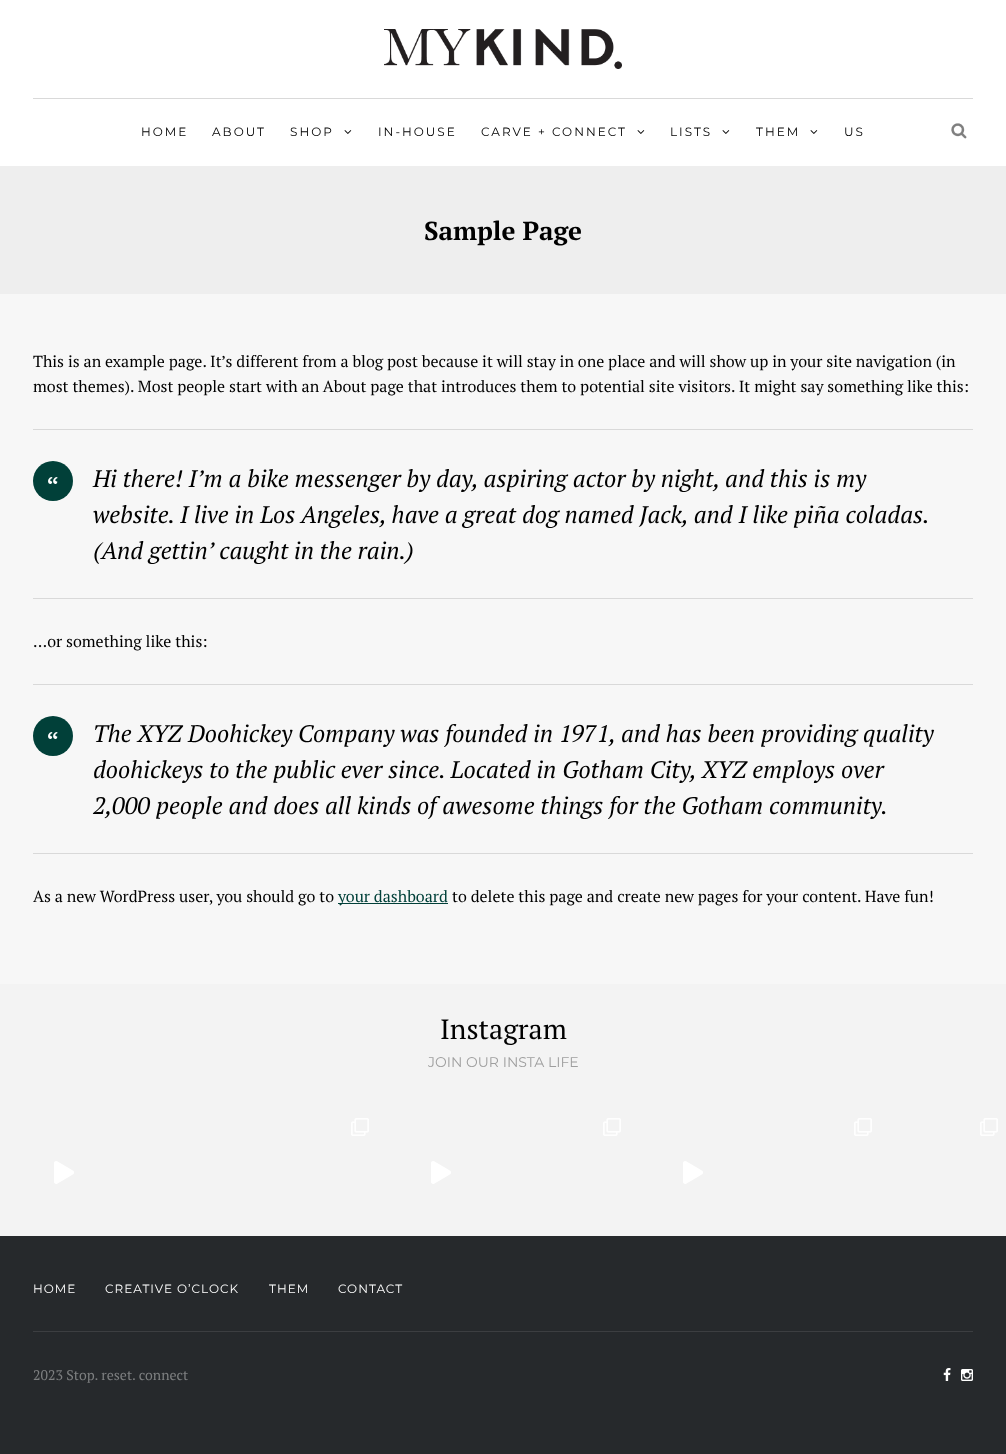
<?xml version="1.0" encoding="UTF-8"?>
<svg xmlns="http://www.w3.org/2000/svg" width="1006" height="1454">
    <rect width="100%" height="100%" fill="#F7F7F7"/>
    <rect x="0" y="0" width="1006" height="166" fill="#FFFFFF"/>
    <image x="384" y="29" width="238" height="40" href="img_01.png"/>
    <rect x="33" y="98" width="940" height="1" fill="#D9D9D9"/>
    <text x="141" y="136" font-family="Montserrat" font-size="12" font-weight="100" letter-spacing="2" fill="#000000">HOME</text>
    <text x="212" y="136" font-family="Montserrat" font-size="12" font-weight="100" letter-spacing="2" fill="#000000">ABOUT</text>
    <text x="290" y="136" font-family="Montserrat" font-size="12" font-weight="100" letter-spacing="2" fill="#000000">SHOP</text>
    <image x="344" y="130" width="8" height="4" href="img_02.png"/>
    <text x="378" y="136" font-family="Montserrat" font-size="12" font-weight="100" letter-spacing="2" fill="#000000">IN-HOUSE</text>
    <text x="481" y="136" font-family="Montserrat" font-size="12" font-weight="100" letter-spacing="2" fill="#000000">CARVE + CONNECT</text>
    <image x="637" y="130" width="8" height="4" href="img_02.png"/>
    <text x="670" y="136" font-family="Montserrat" font-size="12" font-weight="100" letter-spacing="2" fill="#000000">LISTS</text>
    <image x="722" y="130" width="8" height="4" href="img_02.png"/>
    <text x="756" y="136" font-family="Montserrat" font-size="12" font-weight="100" letter-spacing="2" fill="#000000">THEM</text>
    <image x="810" y="130" width="8" height="4" href="img_02.png"/>
    <text x="844" y="136" font-family="Montserrat" font-size="12" font-weight="100" letter-spacing="2" fill="#000000">US</text>
    <image x="951" y="123" width="16" height="16" href="img_03.png"/>
    <rect x="0" y="166" width="1006" height="128" fill="#EEEEEE"/>
    <text x="424" y="240" font-family="PT Serif" font-size="26" font-weight="700" fill="#000000">Sample Page</text>
    <text font-family="PT Serif" font-size="16" fill="#000000">
        <tspan x="33" y="367">This is an example page. It’s different from a blog post because it will stay in one place and will show up in your site navigation (in</tspan>
        <tspan x="33" y="392">most themes). Most people start with an About page that introduces them to potential site visitors. It might say something like this:</tspan>
    </text>
    <rect x="33" y="429" width="940" height="1" fill="#D9D9D9"/>
    <rect x="33" y="598" width="940" height="1" fill="#D9D9D9"/>
    <circle cx="53" cy="481" r="20" fill="#014039"/>
    <text x="46" y="500" font-family="PT Serif" font-size="28" fill="#FFFFFF">“</text>
    <text font-family="PT Serif" font-size="24" font-style="italic" fill="#000000">
        <tspan x="93" y="487">Hi there! I’m a bike messenger by day, aspiring actor by night, and this is my</tspan>
        <tspan x="93" y="523">website. I live in Los Angeles, have a great dog named Jack, and I like piña coladas.</tspan>
        <tspan x="93" y="559">(And gettin’ caught in the rain.)</tspan>
    </text>
    <text x="33" y="647" font-family="PT Serif" font-size="16" fill="#000000">…or something like this:</text>
    <rect x="33" y="684" width="940" height="1" fill="#D9D9D9"/>
    <rect x="33" y="853" width="940" height="1" fill="#D9D9D9"/>
    <circle cx="53" cy="736" r="20" fill="#014039"/>
    <text x="46" y="755" font-family="PT Serif" font-size="28" fill="#FFFFFF">“</text>
    <text font-family="PT Serif" font-size="24" font-style="italic" fill="#000000">
        <tspan x="93" y="742">The XYZ Doohickey Company was founded in 1971, and has been providing quality</tspan>
        <tspan x="93" y="778">doohickeys to the public ever since. Located in Gotham City, XYZ employs over</tspan>
        <tspan x="93" y="814">2,000 people and does all kinds of awesome things for the Gotham community.</tspan>
    </text>
    <text x="33" y="902" font-family="PT Serif" font-size="16" fill="#000000">As a new WordPress user, you should go to</text>
    <rect x="338" y="903" width="110" height="1" fill="#014039"/>
    <text x="338" y="902" font-family="PT Serif" font-size="16" fill="#014039">your dashboard</text>
    <text x="452" y="902" font-family="PT Serif" font-size="16" fill="#000000">to delete this page and create new pages for your content. Have fun!</text>
    <rect x="0" y="984" width="1006" height="252" fill="#F3F3F3"/>
    <text x="440" y="1039" font-family="PT Serif" font-size="28" fill="#000000">Instagram</text>
    <text x="428" y="1067" font-family="Montserrat" font-size="14" font-weight="100" fill="#9E9E9E">JOIN OUR INSTA LIFE</text>
    <image x="351" y="1118" width="18" height="18" href="img_04.png"/>
    <image x="603" y="1118" width="18" height="18" href="img_04.png"/>
    <image x="854" y="1118" width="18" height="18" href="img_04.png"/>
    <image x="980" y="1118" width="18" height="18" href="img_04.png"/>
    <image x="54" y="1161" width="20" height="23" href="img_05.png"/>
    <image x="431" y="1161" width="20" height="23" href="img_05.png"/>
    <image x="683" y="1161" width="20" height="23" href="img_05.png"/>
    <rect x="0" y="1236" width="1006" height="218" fill="#26292C"/>
    <rect x="33" y="1331" width="940" height="1" fill="#3C3E41"/>
    <text x="33" y="1293" font-family="Montserrat" font-size="12" font-weight="100" letter-spacing="1" fill="#FFFFFF">HOME</text>
    <text x="105" y="1293" font-family="Montserrat" font-size="12" font-weight="100" letter-spacing="1" fill="#FFFFFF">CREATIVE O’CLOCK</text>
    <text x="269" y="1293" font-family="Montserrat" font-size="12" font-weight="100" letter-spacing="1" fill="#FFFFFF">THEM</text>
    <text x="338" y="1293" font-family="Montserrat" font-size="12" font-weight="100" letter-spacing="1" fill="#FFFFFF">CONTACT</text>
    <text x="33" y="1380" font-family="PT Serif" font-size="14" fill="#7D7F80">2023 Stop. reset. connect</text>
    <image x="943" y="1368" width="8" height="13" href="img_06.png"/>
    <image x="961" y="1369" width="12" height="12" href="img_07.png"/>
</svg>
